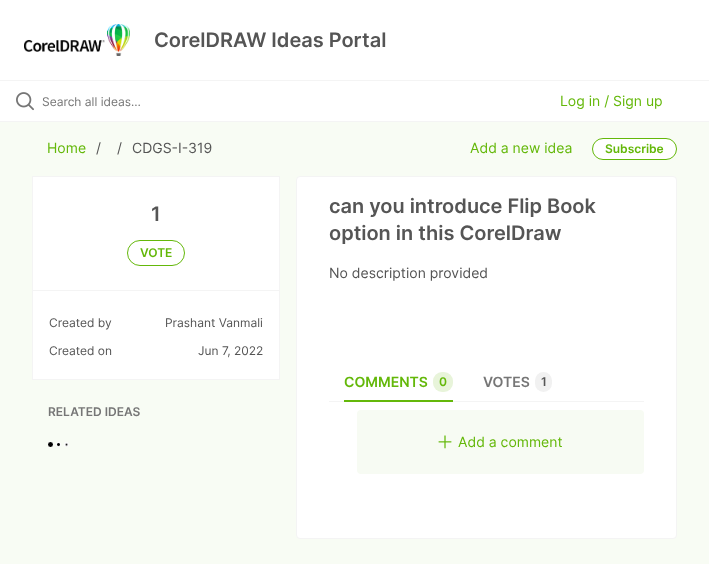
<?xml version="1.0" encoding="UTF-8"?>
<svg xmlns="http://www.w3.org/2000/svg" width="709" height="564">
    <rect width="100%" height="100%" fill="#F8FCF4"/>
    <rect x="0" y="0" width="709" height="80" fill="#FFFFFF"/>
    <rect x="0" y="80" width="709" height="1" fill="#F4F4F4"/>
    <image x="24" y="24" width="106" height="32" href="img_01.png"/>
    <text x="154" y="47" font-family="Inter" font-size="20" font-weight="600" fill="#555555">CorelDRAW Ideas Portal</text>
    <rect x="0" y="81" width="709" height="40" fill="#FFFFFF"/>
    <rect x="0" y="121" width="709" height="1" fill="#F4F4F4"/>
    <image x="16" y="92" width="18" height="19" href="img_02.png"/>
    <text x="42" y="106" font-family="Inter" font-size="12" fill="#767676">Search all ideas…</text>
    <text x="560" y="106" font-family="Inter" font-size="14" fill="#64B80A">Log in / Sign up</text>
    <text x="47" y="153" font-family="Inter" font-size="14" fill="#64B80A">Home</text>
    <text x="96" y="153" font-family="Inter" font-size="14" fill="#555555">/</text>
    <text x="117" y="153" font-family="Inter" font-size="14" fill="#555555">/</text>
    <text x="132" y="153" font-family="Inter" font-size="14" fill="#555555">CDGS-I-319</text>
    <text x="470" y="153" font-family="Inter" font-size="14" fill="#64B80A">Add a new idea</text>
    <rect x="592.5" y="138.5" width="84" height="21" rx="10.5" fill="#FFFFFF" stroke="#64B80A"/>
    <text x="605" y="153" font-family="Inter" font-size="12" font-weight="600" fill="#64B80A">Subscribe</text>
    <rect x="32.5" y="176.5" width="247" height="203" fill="#FFFFFF" stroke="#F4F4F4"/>
    <text x="151" y="221" font-family="Inter" font-size="20" font-weight="600" fill="#555555">1</text>
    <rect x="127.5" y="240.5" width="57" height="25" rx="12.5" fill="none" stroke="#64B80A"/>
    <text x="140" y="257" font-family="Inter" font-size="12" font-weight="600" fill="#64B80A">VOTE</text>
    <rect x="33" y="290" width="246" height="1" fill="#F4F4F4"/>
    <text x="49" y="327" font-family="Inter" font-size="12" fill="#555555">Created by</text>
    <text x="165" y="327" font-family="Inter" font-size="12" fill="#555555">Prashant Vanmali</text>
    <text x="49" y="355" font-family="Inter" font-size="12" fill="#555555">Created on</text>
    <text x="198" y="355" font-family="Inter" font-size="12" fill="#555555">Jun 7, 2022</text>
    <text x="48" y="416" font-family="Inter" font-size="12" font-weight="600" fill="#767676">RELATED IDEAS</text>
    <image x="48" y="442" width="21" height="5" href="img_03.png"/>
    <rect x="296.5" y="176.5" width="380" height="362" rx="3.5" fill="#FFFFFF" stroke="#F4F4F4"/>
    <text font-family="Inter" font-size="20" font-weight="600" fill="#555555">
        <tspan x="329" y="213">can you introduce Flip Book</tspan>
        <tspan x="329" y="240">option in this CorelDraw</tspan>
    </text>
    <text x="329" y="278" font-family="Inter" font-size="14" fill="#555555">No description provided</text>
    <rect x="329" y="401" width="315" height="1" fill="#F4F4F4"/>
    <rect x="344" y="400" width="109" height="2" fill="#64B80A"/>
    <text x="344" y="387" font-family="Inter" font-size="14" font-weight="600" fill="#64B80A">COMMENTS</text>
    <rect x="433" y="372" width="20" height="20" rx="9" fill="#E8F4DA"/>
    <text x="439" y="386" font-family="Inter" font-size="12" font-weight="600" fill="#64B80A">0</text>
    <text x="483" y="387" font-family="Inter" font-size="14" font-weight="600" fill="#767676">VOTES</text>
    <rect x="535" y="372" width="17" height="20" rx="8.5" fill="#F1F1F1"/>
    <text x="541" y="386" font-family="Inter" font-size="12" font-weight="600" fill="#555555">1</text>
    <rect x="357" y="410" width="287" height="64" rx="4" fill="#F7FBF3"/>
    <image x="438" y="435" width="14" height="14" href="img_04.png"/>
    <text x="458" y="447" font-family="Inter" font-size="14" fill="#64B80A">Add a comment</text>
</svg>
